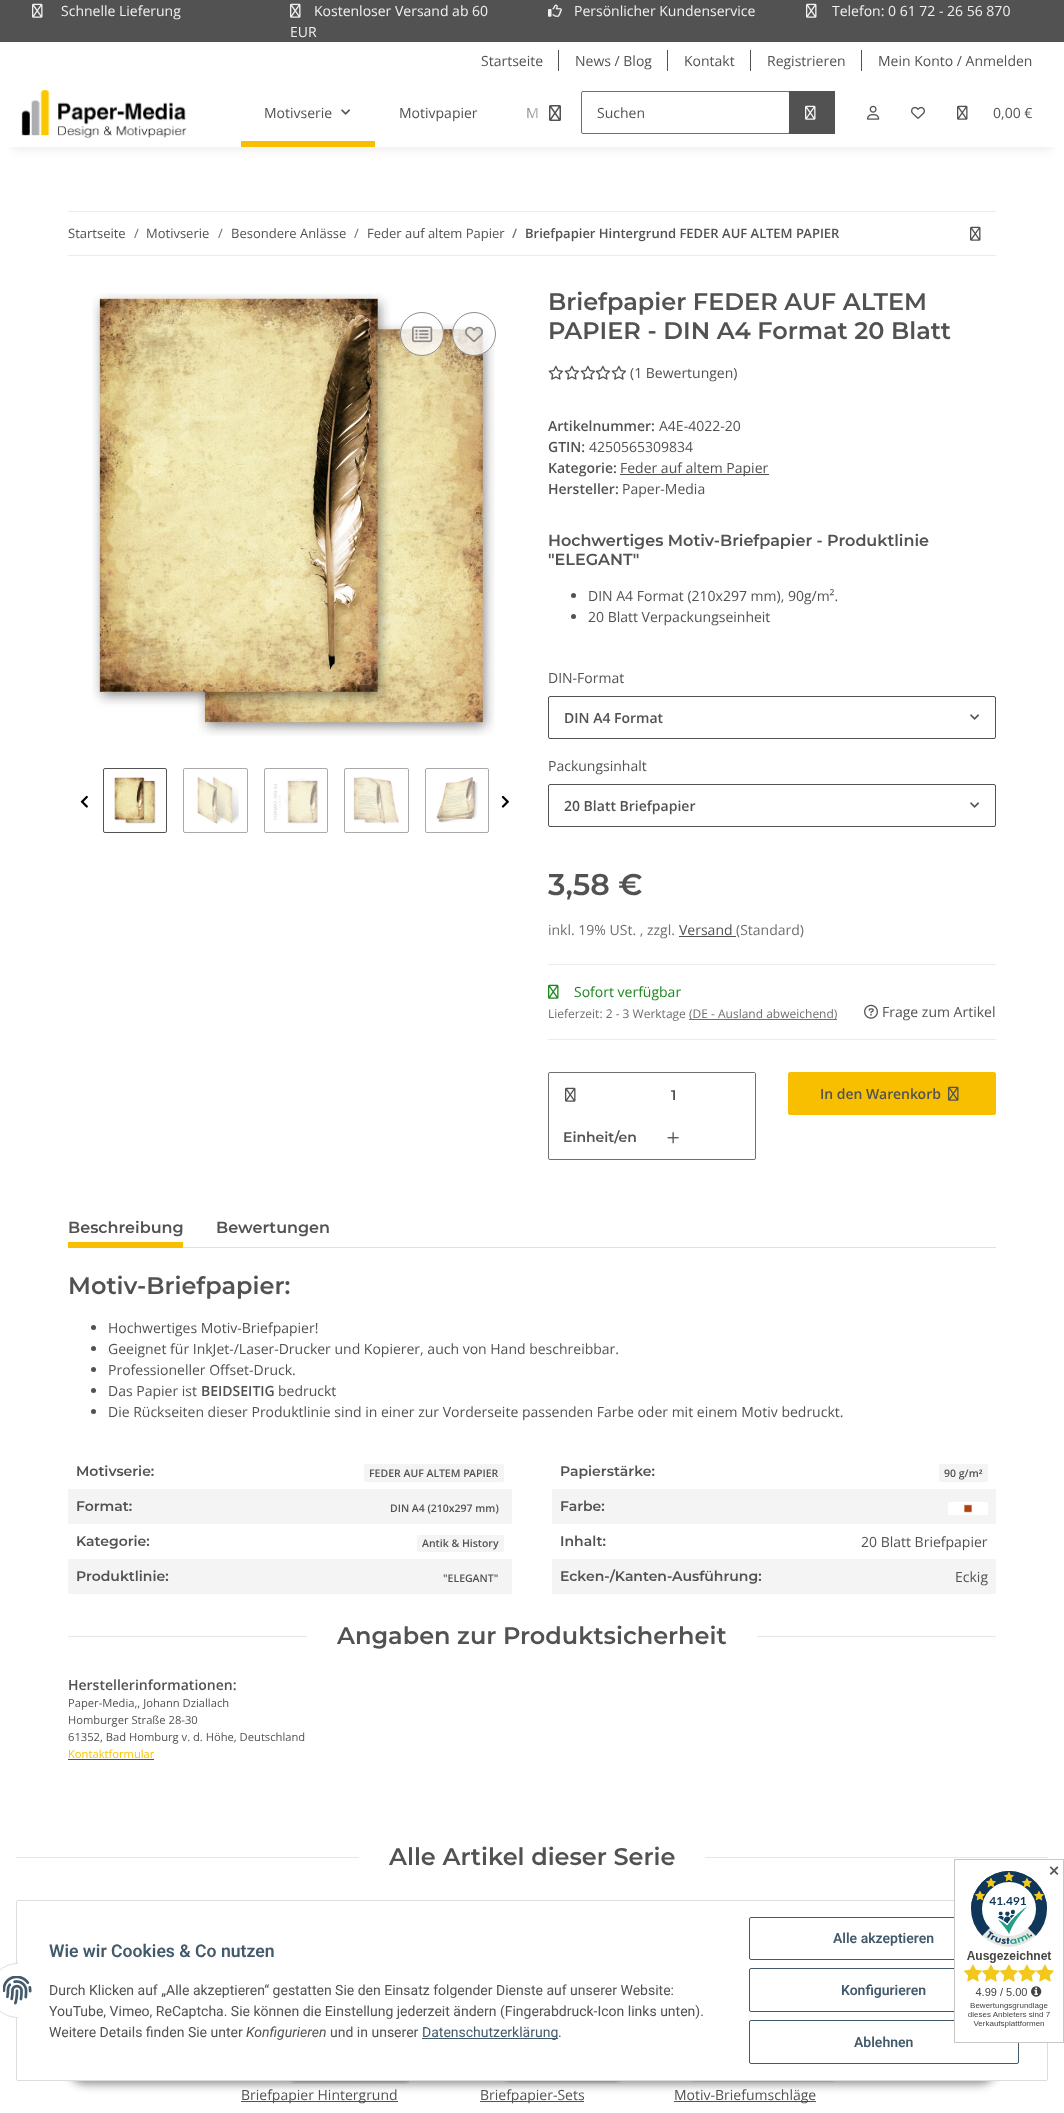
<?xml version="1.0" encoding="UTF-8"?>
<svg xmlns="http://www.w3.org/2000/svg" width="1064" height="2113">
    <defs>
        <filter id="blur1" x="-50%" y="-200%" width="200%" height="500%"><feGaussianBlur stdDeviation="4.5"/></filter>
        <linearGradient id="g1" gradientUnits="userSpaceOnUse" x1="517" y1="113" x2="565" y2="113"><stop offset="0" stop-color="#FFFFFF" stop-opacity="0.01"/><stop offset="0.7" stop-color="#FFFFFF"/></linearGradient>
        <filter id="blur2" x="-50%" y="-200%" width="200%" height="500%"><feGaussianBlur stdDeviation="5"/></filter>
    </defs>
    <rect width="100%" height="100%" fill="#525252"/>
    <image x="32" y="3" width="11" height="15" href="img_01.png"/>
    <text x="61" y="16" font-family="Open Sans" font-size="14" fill="#F1F1F1">Schnelle Lieferung</text>
    <image x="290" y="3" width="11" height="15" href="img_01.png"/>
    <text x="314" y="16" font-family="Open Sans" font-size="14" fill="#F1F1F1">Kostenloser Versand ab 60</text>
    <text x="290" y="37" font-family="Open Sans" font-size="14" fill="#F1F1F1">EUR</text>
    <image x="548" y="4" width="14" height="13" href="img_02.png"/>
    <text x="574" y="16" font-family="Open Sans" font-size="14" fill="#F1F1F1">Persönlicher Kundenservice</text>
    <image x="806" y="3" width="11" height="15" href="img_01.png"/>
    <text x="832" y="16" font-family="Open Sans" font-size="14" fill="#F1F1F1">Telefon: 0 61 72 - 26 56 870</text>
    <rect x="0" y="147" width="1064" height="1966" fill="#FFFFFF"/>
    <rect x="12" y="107" width="1040" height="44" fill="#000000" fill-opacity="0.06" filter="url(#blur1)"/>
    <rect x="0" y="42" width="1064" height="105" fill="#FFFFFF"/>
    <text x="481" y="66" font-family="Open Sans" font-size="14" fill="#525252">Startseite</text>
    <rect x="558" y="50" width="1" height="21" fill="#525252"/>
    <text x="575" y="66" font-family="Open Sans" font-size="14" fill="#525252">News / Blog</text>
    <rect x="667" y="50" width="1" height="21" fill="#525252"/>
    <text x="684" y="66" font-family="Open Sans" font-size="14" fill="#525252">Kontakt</text>
    <rect x="750" y="50" width="1" height="21" fill="#525252"/>
    <text x="767" y="66" font-family="Open Sans" font-size="14" fill="#525252">Registrieren</text>
    <rect x="861" y="50" width="1" height="21" fill="#525252"/>
    <text x="878" y="66" font-family="Open Sans" font-size="14" fill="#525252">Mein Konto / Anmelden</text>
    <image x="21" y="90" width="166" height="48" href="img_03.png"/>
    <text x="264" y="118" font-family="Open Sans" font-size="14" fill="#525252">Motivserie</text>
    <image x="341" y="109" width="9" height="6" href="img_04.png"/>
    <rect x="241" y="141" width="134" height="6" fill="#F8BF00"/>
    <text x="399" y="118" font-family="Open Sans" font-size="14" fill="#525252">Motivpapier</text>
    <text x="526" y="118" font-family="Open Sans" font-size="14" fill="#525252">M</text>
    <rect x="527" y="108" width="10" height="10" fill="url(#g1)"/>
    <image x="549" y="105" width="12" height="16" href="img_05.png"/>
    <rect x="581.5" y="91.5" width="208" height="42" rx="1.5" fill="none" stroke="#707070"/>
    <text x="597" y="118" font-family="Open Sans" font-size="14" fill="#525252">Suchen</text>
    <rect x="789" y="91" width="46" height="43" fill="#525252"/>
    <image x="805" y="105" width="11" height="15" href="img_06.png"/>
    <image x="867" y="105" width="13" height="15" href="img_07.png"/>
    <image x="911" y="106" width="14" height="13" href="img_08.png"/>
    <image x="957" y="105" width="11" height="15" href="img_09.png"/>
    <text x="993" y="118" font-family="Open Sans" font-size="14" fill="#525252">0,00 €</text>
    <rect x="68" y="211" width="928" height="1" fill="#EBEBEB"/>
    <rect x="68" y="255" width="928" height="1" fill="#EBEBEB"/>
    <text x="68" y="238" font-family="Open Sans" font-size="13" fill="#525252">Startseite</text>
    <text x="134" y="238" font-family="Open Sans" font-size="13" fill="#707070">/</text>
    <text x="146" y="238" font-family="Open Sans" font-size="13" fill="#525252">Motivserie</text>
    <text x="218" y="238" font-family="Open Sans" font-size="13" fill="#707070">/</text>
    <text x="231" y="238" font-family="Open Sans" font-size="13" fill="#525252">Besondere Anlässe</text>
    <text x="354" y="238" font-family="Open Sans" font-size="13" fill="#707070">/</text>
    <text x="367" y="238" font-family="Open Sans" font-size="13" fill="#525252">Feder auf altem Papier</text>
    <text x="512" y="238" font-family="Open Sans" font-size="13" font-weight="600" fill="#707070">/</text>
    <text x="525" y="238" font-family="Open Sans" font-size="13" font-weight="600" fill="#525252">Briefpapier Hintergrund FEDER AUF ALTEM PAPIER</text>
    <image x="970" y="226" width="11" height="15" href="img_09.png"/>
    <image x="92" y="293" width="403" height="443" href="img_10.png"/>
    <circle cx="422" cy="334" r="22" fill="#FFFFFF" fill-opacity="0.8"/>
    <circle cx="422" cy="334" r="21.5" fill="none" stroke="#707070" stroke-opacity="0.8"/>
    <image x="412" y="326" width="21" height="17" href="img_11.png"/>
    <circle cx="474" cy="334" r="22" fill="#FFFFFF" fill-opacity="0.8"/>
    <circle cx="474" cy="334" r="21.5" fill="none" stroke="#707070" stroke-opacity="0.8"/>
    <image x="465" y="326" width="18" height="16" href="img_12.png"/>
    <image x="80" y="795" width="8" height="13" href="img_13.png"/>
    <rect x="103.5" y="768.5" width="63" height="64" rx="1.5" fill="none" stroke="#525252"/>
    <image x="114" y="777" width="42" height="47" href="img_14.png"/>
    <rect x="183.5" y="768.5" width="64" height="64" rx="1.5" fill="none" stroke="#A9A9A9"/>
    <image x="197" y="776" width="42" height="48" href="img_15.png"/>
    <rect x="264.5" y="768.5" width="63" height="64" rx="1.5" fill="none" stroke="#A9A9A9"/>
    <image x="273" y="778" width="45" height="46" href="img_16.png"/>
    <rect x="344.5" y="768.5" width="64" height="64" rx="1.5" fill="none" stroke="#A9A9A9"/>
    <image x="353" y="776" width="46" height="48" href="img_17.png"/>
    <rect x="425.5" y="768.5" width="63" height="64" rx="1.5" fill="none" stroke="#A9A9A9"/>
    <image x="436" y="776" width="42" height="47" href="img_18.png"/>
    <image x="501" y="795" width="8" height="13" href="img_19.png"/>
    <text font-family="Montserrat" font-size="24" font-weight="600" fill="#525252">
        <tspan x="548" y="310">Briefpapier FEDER AUF ALTEM</tspan>
        <tspan x="548" y="339">PAPIER - DIN A4 Format 20 Blatt</tspan>
    </text>
    <image x="548" y="365" width="16" height="15" href="img_20.png"/>
    <image x="564" y="365" width="16" height="15" href="img_20.png"/>
    <image x="580" y="365" width="16" height="15" href="img_20.png"/>
    <image x="595" y="365" width="16" height="15" href="img_21.png"/>
    <image x="611" y="365" width="16" height="15" href="img_20.png"/>
    <text x="630" y="378" font-family="Open Sans" font-size="14" fill="#525252">(1 Bewertungen)</text>
    <text x="548" y="431" font-family="Open Sans" font-size="14" font-weight="600" fill="#525252">Artikelnummer:</text>
    <text x="659" y="431" font-family="Open Sans" font-size="14" fill="#525252">A4E-4022-20</text>
    <text x="548" y="452" font-family="Open Sans" font-size="14" font-weight="600" fill="#525252">GTIN:</text>
    <text x="589" y="452" font-family="Open Sans" font-size="14" fill="#525252">4250565309834</text>
    <text x="548" y="473" font-family="Open Sans" font-size="14" font-weight="600" fill="#525252">Kategorie:</text>
    <rect x="620" y="474" width="149" height="1" fill="#525252"/>
    <text x="620" y="473" font-family="Open Sans" font-size="14" fill="#525252">Feder auf altem Papier</text>
    <text x="548" y="494" font-family="Open Sans" font-size="14" font-weight="600" fill="#525252">Hersteller:</text>
    <text x="622" y="494" font-family="Open Sans" font-size="14" fill="#525252">Paper-Media</text>
    <text font-family="Montserrat" font-size="16" font-weight="600" fill="#525252">
        <tspan x="548" y="546">Hochwertiges Motiv-Briefpapier - Produktlinie</tspan>
        <tspan x="548" y="565">"ELEGANT"</tspan>
    </text>
    <circle cx="573.5" cy="595.5" r="2.5" fill="#525252"/>
    <text x="588" y="601" font-family="Open Sans" font-size="14" fill="#525252">DIN A4 Format (210x297 mm), 90g/m².</text>
    <circle cx="573.5" cy="616.5" r="2.5" fill="#525252"/>
    <text x="588" y="622" font-family="Open Sans" font-size="14" fill="#525252">20 Blatt Verpackungseinheit</text>
    <text x="548" y="683" font-family="Open Sans" font-size="14" fill="#525252">DIN-Format</text>
    <rect x="548.5" y="696.5" width="447" height="42" rx="1.5" fill="none" stroke="#525252"/>
    <text x="564" y="723" font-family="Open Sans" font-size="14" font-weight="600" fill="#525252">DIN A4 Format</text>
    <image x="970" y="714" width="9" height="6" href="img_04.png"/>
    <text x="548" y="771" font-family="Open Sans" font-size="14" fill="#525252">Packungsinhalt</text>
    <rect x="548.5" y="784.5" width="447" height="42" rx="1.5" fill="none" stroke="#525252"/>
    <text x="564" y="811" font-family="Open Sans" font-size="14" font-weight="600" fill="#525252">20 Blatt Briefpapier</text>
    <image x="970" y="802" width="9" height="6" href="img_04.png"/>
    <text x="548" y="895" font-family="Montserrat" font-size="30" font-weight="600" fill="#525252">3,58 €</text>
    <text x="548" y="935" font-family="Open Sans" font-size="14" fill="#707070">inkl. 19% USt. , zzgl.</text>
    <text x="679" y="935" font-family="Open Sans" font-size="14" fill="#525252">Versand</text>
    <text x="736" y="935" font-family="Open Sans" font-size="14" fill="#707070">(Standard)</text>
    <rect x="679" y="936" width="57" height="1" fill="#525252"/>
    <rect x="548" y="964" width="448" height="1" fill="#EBEBEB"/>
    <rect x="548" y="1039" width="448" height="1" fill="#EBEBEB"/>
    <image x="548" y="984" width="11" height="15" href="img_22.png"/>
    <text x="574" y="997" font-family="Open Sans" font-size="14" fill="#1C871E">Sofort verfügbar</text>
    <text x="548" y="1018" font-family="Open Sans" font-size="12" fill="#707070">Lieferzeit: 2 - 3 Werktage</text>
    <rect x="689" y="1019" width="148" height="1" fill="#707070"/>
    <text x="689" y="1018" font-family="Open Sans" font-size="12" fill="#707070">(DE - Ausland abweichend)</text>
    <image x="864" y="1004" width="14" height="15" href="img_23.png"/>
    <text x="882" y="1017" font-family="Open Sans" font-size="14" fill="#525252">Frage zum Artikel</text>
    <rect x="548.5" y="1072.5" width="207" height="87" rx="1.5" fill="none" stroke="#707070"/>
    <image x="565" y="1087" width="11" height="15" href="img_09.png"/>
    <rect x="754" y="1073" width="1" height="1" fill="#FFFFFF"/>
    <text x="671" y="1100" font-family="Montserrat" font-size="14" font-weight="600" fill="#525252">1</text>
    <text x="563" y="1142" font-family="Montserrat" font-size="14" font-weight="600" fill="#525252">Einheit/en</text>
    <image x="667" y="1132" width="12" height="12" href="img_24.png"/>
    <rect x="788.5" y="1072.5" width="207" height="42" rx="1.5" fill="#F8BF00" stroke="#F8BF00"/>
    <text x="820" y="1099" font-family="Open Sans" font-size="14" font-weight="600" fill="#525252">In den Warenkorb</text>
    <image x="948" y="1086" width="11" height="15" href="img_25.png"/>
    <rect x="183" y="1247" width="813" height="1" fill="#DEE2E6"/>
    <text x="68" y="1233" font-family="Montserrat" font-size="16" font-weight="600" fill="#525252">Beschreibung</text>
    <rect x="68" y="1242" width="115" height="6" fill="#F8BF00"/>
    <text x="216" y="1233" font-family="Montserrat" font-size="16" font-weight="600" fill="#525252">Bewertungen</text>
    <text x="68" y="1294" font-family="Montserrat" font-size="24" font-weight="600" fill="#525252">Motiv-Briefpapier:</text>
    <circle cx="93.5" cy="1327.5" r="2.5" fill="#525252"/>
    <text x="108" y="1333" font-family="Open Sans" font-size="14" fill="#525252">Hochwertiges Motiv-Briefpapier!</text>
    <circle cx="93.5" cy="1348.5" r="2.5" fill="#525252"/>
    <text x="108" y="1354" font-family="Open Sans" font-size="14" fill="#525252">Geeignet für InkJet-/Laser-Drucker und Kopierer, auch von Hand beschreibbar.</text>
    <circle cx="93.5" cy="1369.5" r="2.5" fill="#525252"/>
    <text x="108" y="1375" font-family="Open Sans" font-size="14" fill="#525252">Professioneller Offset-Druck.</text>
    <circle cx="93.5" cy="1390.5" r="2.5" fill="#525252"/>
    <text x="108" y="1396" font-family="Open Sans" font-size="14" fill="#525252">Das Papier ist</text>
    <text x="201" y="1396" font-family="Open Sans" font-size="14" font-weight="600" fill="#525252">BEIDSEITIG</text>
    <text x="278" y="1396" font-family="Open Sans" font-size="14" fill="#525252">bedruckt</text>
    <circle cx="93.5" cy="1411.5" r="2.5" fill="#525252"/>
    <text x="108" y="1417" font-family="Open Sans" font-size="14" fill="#525252">Die Rückseiten dieser Produktlinie sind in einer zur Vorderseite passenden Farbe oder mit einem Motiv bedruckt.</text>
    <text x="76" y="1476" font-family="Montserrat" font-size="14" font-weight="600" fill="#525252">Motivserie:</text>
    <rect x="364" y="1464" width="140" height="18" rx="2" fill="#F4F4F4"/>
    <text x="369" y="1477" font-family="Open Sans" font-size="10.5" font-weight="600" fill="#525252">FEDER AUF ALTEM PAPIER</text>
    <text x="560" y="1476" font-family="Montserrat" font-size="14" font-weight="600" fill="#525252">Papierstärke:</text>
    <rect x="939" y="1464" width="49" height="18" rx="2" fill="#F4F4F4"/>
    <text x="944" y="1477" font-family="Open Sans" font-size="10.5" font-weight="600" fill="#525252">90 g/m²</text>
    <rect x="68" y="1489" width="444" height="35" fill="#F4F4F4"/>
    <text x="76" y="1511" font-family="Montserrat" font-size="14" font-weight="600" fill="#525252">Format:</text>
    <text x="390" y="1512" font-family="Open Sans" font-size="10.5" font-weight="600" fill="#525252">DIN A4 (210x297 mm)</text>
    <rect x="552" y="1489" width="444" height="35" fill="#F4F4F4"/>
    <text x="560" y="1511" font-family="Montserrat" font-size="14" font-weight="600" fill="#525252">Farbe:</text>
    <image x="948" y="1502" width="40" height="13" href="img_26.png"/>
    <text x="76" y="1546" font-family="Montserrat" font-size="14" font-weight="600" fill="#525252">Kategorie:</text>
    <rect x="417" y="1535" width="87" height="17" rx="2" fill="#F4F4F4"/>
    <text x="422" y="1547" font-family="Open Sans" font-size="10.5" font-weight="600" fill="#525252">Antik &amp; History</text>
    <text x="560" y="1546" font-family="Montserrat" font-size="14" font-weight="600" fill="#525252">Inhalt:</text>
    <text x="861" y="1547" font-family="Open Sans" font-size="14" fill="#525252">20 Blatt Briefpapier</text>
    <rect x="68" y="1559" width="444" height="35" fill="#F4F4F4"/>
    <text x="76" y="1581" font-family="Montserrat" font-size="14" font-weight="600" fill="#525252">Produktlinie:</text>
    <text x="443" y="1582" font-family="Open Sans" font-size="10.5" font-weight="600" fill="#525252">"ELEGANT"</text>
    <rect x="552" y="1559" width="444" height="35" fill="#F4F4F4"/>
    <text x="560" y="1581" font-family="Montserrat" font-size="14" font-weight="600" fill="#525252">Ecken-/Kanten-Ausführung:</text>
    <text x="955" y="1582" font-family="Open Sans" font-size="14" fill="#525252">Eckig</text>
    <rect x="68" y="1636" width="239" height="1" fill="#E6E6E6"/>
    <text x="337" y="1644" font-family="Montserrat" font-size="24" font-weight="600" fill="#525252">Angaben zur Produktsicherheit</text>
    <rect x="757" y="1636" width="239" height="1" fill="#E6E6E6"/>
    <text x="68" y="1690" font-family="Open Sans" font-size="14" font-weight="600" fill="#525252">Herstellerinformationen:</text>
    <text font-family="Open Sans" font-size="11.2" fill="#525252">
        <tspan x="68" y="1707">Paper-Media,, Johann Dziallach</tspan>
        <tspan x="68" y="1724">Homburger Straße 28-30</tspan>
        <tspan x="68" y="1741">61352, Bad Homburg v. d. Höhe, Deutschland</tspan>
    </text>
    <text x="68" y="1758" font-family="Open Sans" font-size="11.2" fill="#FAC600">Kontaktformular</text>
    <rect x="68" y="1759" width="86" height="1" fill="#525252"/>
    <rect x="16" y="1857" width="343" height="1" fill="#E6E6E6"/>
    <text x="389" y="1865" font-family="Montserrat" font-size="24" font-weight="600" fill="#525252">Alle Artikel dieser Serie</text>
    <rect x="705" y="1857" width="343" height="1" fill="#E6E6E6"/>
    <image x="229" y="2081" width="181" height="3" href="img_27.png"/>
    <rect x="241" y="2101" width="157" height="1" fill="#525252"/>
    <text x="241" y="2100" font-family="Open Sans" font-size="14" fill="#525252">Briefpapier Hintergrund</text>
    <image x="442" y="2081" width="180" height="3" href="img_28.png"/>
    <rect x="480" y="2101" width="104" height="1" fill="#525252"/>
    <text x="480" y="2100" font-family="Open Sans" font-size="14" fill="#525252">Briefpapier-Sets</text>
    <image x="654" y="2081" width="181" height="2" href="img_29.png"/>
    <rect x="674" y="2101" width="142" height="1" fill="#525252"/>
    <text x="674" y="2100" font-family="Open Sans" font-size="14" fill="#525252">Motiv-Briefumschläge</text>
    <rect x="69" y="2052" width="927" height="32" rx="16" fill="#000000" fill-opacity="0.45" filter="url(#blur2)"/>
    <rect x="16.5" y="1900.5" width="1031" height="180" rx="1.5" fill="#FFFFFF" stroke="#DDDDDD"/>
    <rect x="749.5" y="1917.5" width="269" height="42" rx="1.5" fill="none" stroke="#435A6B"/>
    <rect x="749.5" y="1968.5" width="269" height="43" rx="1.5" fill="none" stroke="#435A6B"/>
    <rect x="749.5" y="2020.5" width="269" height="43" rx="1.5" fill="none" stroke="#435A6B"/>
    <image x="954" y="1859" width="110" height="184" href="img_30.png"/>
    <text x="1048" y="1876" font-family="DejaVu Sans" font-size="14" font-weight="700" fill="#595959">✕</text>
    <circle cx="17.5" cy="1990.5" r="27" fill="#FFFFFF" stroke="#DDDDDD"/>
    <rect x="18" y="1963" width="27" height="55" fill="#FFFFFF"/>
    <image x="3" y="1976" width="29" height="29" href="img_31.png"/>
    <text x="49" y="1957" font-family="Roboto" font-size="17.6" font-weight="600" fill="#435A6B">Wie wir Cookies &amp; Co nutzen</text>
    <text font-family="Roboto" font-size="14" fill="#525252">
        <tspan x="49" y="1995">Durch Klicken auf „Alle akzeptieren“ gestatten Sie den Einsatz folgender Dienste auf unserer Website:</tspan>
        <tspan x="49" y="2016">YouTube, Vimeo, ReCaptcha. Sie können die Einstellung jederzeit ändern (Fingerabdruck-Icon links unten).</tspan>
        <tspan x="49" y="2037">Weitere Details finden Sie unter</tspan>
    </text>
    <text x="246" y="2037" font-family="Roboto" font-size="14" font-style="italic" fill="#525252">Konfigurieren</text>
    <text x="330" y="2037" font-family="Roboto" font-size="14" fill="#525252">und in unserer</text>
    <rect x="422" y="2038" width="136" height="1" fill="#435A6B"/>
    <text x="422" y="2037" font-family="Roboto" font-size="14" fill="#435A6B">Datenschutzerklärung</text>
    <text x="558" y="2037" font-family="Roboto" font-size="14" fill="#525252">.</text>
    <text x="833" y="1943" font-family="Roboto" font-size="14" font-weight="600" fill="#435A6B">Alle akzeptieren</text>
    <text x="841" y="1995" font-family="Roboto" font-size="14" font-weight="600" fill="#435A6B">Konfigurieren</text>
    <text x="854" y="2047" font-family="Roboto" font-size="14" font-weight="600" fill="#435A6B">Ablehnen</text>
</svg>
